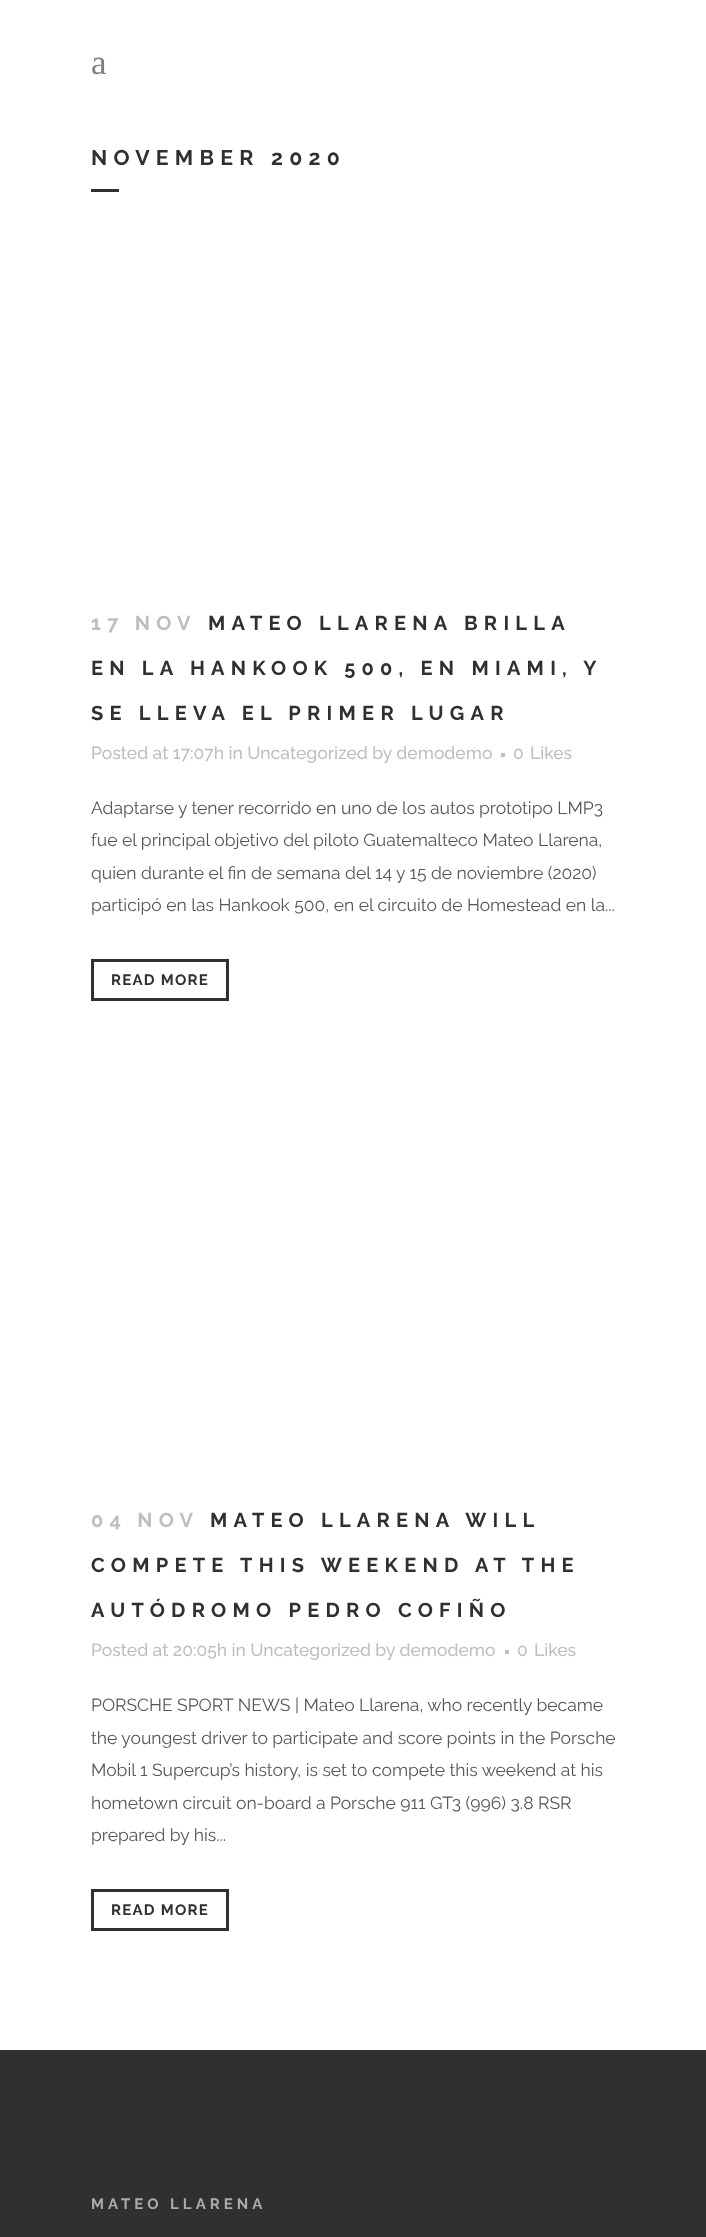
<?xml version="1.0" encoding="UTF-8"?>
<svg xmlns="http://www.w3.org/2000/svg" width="706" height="2237">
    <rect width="100%" height="100%" fill="#FFFFFF"/>
    <text x="91" y="74" font-family="Liberation Serif" font-size="35" fill="#808080">a</text>
    <text x="91" y="165" font-family="Raleway" font-size="21.25" font-weight="700" letter-spacing="6.25" fill="#303030">NOVEMBER 2020</text>
    <rect x="91" y="189" width="28" height="3" fill="#303030"/>
    <text x="91" y="630" word-spacing="-1" font-family="Raleway" font-size="20" font-weight="700" letter-spacing="6.25" fill="#BEBEBE">17 NOV</text>
    <text x="208" y="630" font-family="Raleway" font-size="20" font-weight="700" letter-spacing="6.25" fill="#303030">MATEO LLARENA BRILLA</text>
    <text x="91" y="675" font-family="Raleway" font-size="20" font-weight="700" letter-spacing="6.25" fill="#303030">EN LA HANKOOK 500, EN MIAMI, Y</text>
    <text x="91" y="720" font-family="Raleway" font-size="20" font-weight="700" letter-spacing="6.25" fill="#303030">SE LLEVA EL PRIMER LUGAR</text>
    <text x="91" y="759" font-family="Raleway" font-size="17.5" font-weight="500" fill="#BEBEBE">Posted at 17:07h in Uncategorized by demodemo</text>
    <rect x="501" y="753" width="4" height="4" fill="#BEBEBE"/>
    <text x="513" y="759" font-family="Raleway" font-size="17.5" font-weight="500" fill="#BEBEBE">0</text>
    <text x="530" y="759" font-family="Raleway" font-size="17.5" font-weight="500" fill="#BEBEBE">Likes</text>
    <text font-family="Raleway" font-size="17.5" fill="#565656">
        <tspan x="91" y="814">Adaptarse y tener recorrido en uno de los autos prototipo LMP3</tspan>
        <tspan x="91" y="846">fue el principal objetivo del piloto Guatemalteco Mateo Llarena,</tspan>
        <tspan x="91" y="879">quien durante el fin de semana del 14 y 15 de noviembre (2020)</tspan>
        <tspan x="91" y="911">participó en las Hankook 500, en el circuito de Homestead en la...</tspan>
    </text>
    <rect x="92.5" y="960.5" width="135" height="39" fill="none" stroke="#303030" stroke-width="3"/>
    <text x="111" y="985" font-family="Raleway" font-size="15" font-weight="700" letter-spacing="1.25" fill="#303030">READ MORE</text>
    <text x="91" y="1527" word-spacing="-1" font-family="Raleway" font-size="20" font-weight="700" letter-spacing="6.25" fill="#BEBEBE">04 NOV</text>
    <text x="210" y="1527" font-family="Raleway" font-size="20" font-weight="700" letter-spacing="6.25" fill="#303030">MATEO LLARENA WILL</text>
    <text x="91" y="1572" font-family="Raleway" font-size="20" font-weight="700" letter-spacing="6.25" fill="#303030">COMPETE THIS WEEKEND AT THE</text>
    <text x="91" y="1617" font-family="Raleway" font-size="20" font-weight="700" letter-spacing="6.25" fill="#303030">AUTÓDROMO PEDRO COFIÑO</text>
    <text x="91" y="1656" font-family="Raleway" font-size="17.5" font-weight="500" fill="#BEBEBE">Posted at 20:05h in Uncategorized by demodemo</text>
    <rect x="505" y="1650" width="4" height="4" fill="#BEBEBE"/>
    <text x="517" y="1656" font-family="Raleway" font-size="17.5" font-weight="500" fill="#BEBEBE">0</text>
    <text x="534" y="1656" font-family="Raleway" font-size="17.5" font-weight="500" fill="#BEBEBE">Likes</text>
    <text font-family="Raleway" font-size="17.5" fill="#565656">
        <tspan x="91" y="1711">PORSCHE SPORT NEWS | Mateo Llarena, who recently became</tspan>
        <tspan x="91" y="1744">the youngest driver to participate and score points in the Porsche</tspan>
        <tspan x="91" y="1776">Mobil 1 Supercup’s history, is set to compete this weekend at his</tspan>
        <tspan x="91" y="1809">hometown circuit on-board a Porsche 911 GT3 (996) 3.8 RSR</tspan>
        <tspan x="91" y="1841">prepared by his...</tspan>
    </text>
    <rect x="92.5" y="1890.5" width="135" height="39" fill="none" stroke="#303030" stroke-width="3"/>
    <text x="111" y="1915" font-family="Raleway" font-size="15" font-weight="700" letter-spacing="1.25" fill="#303030">READ MORE</text>
    <rect x="0" y="2050" width="706" height="187" fill="#303030"/>
    <text x="91" y="2209" font-family="Raleway" font-size="15" font-weight="700" letter-spacing="4" fill="#ABABAB">MATEO LLARENA</text>
</svg>
